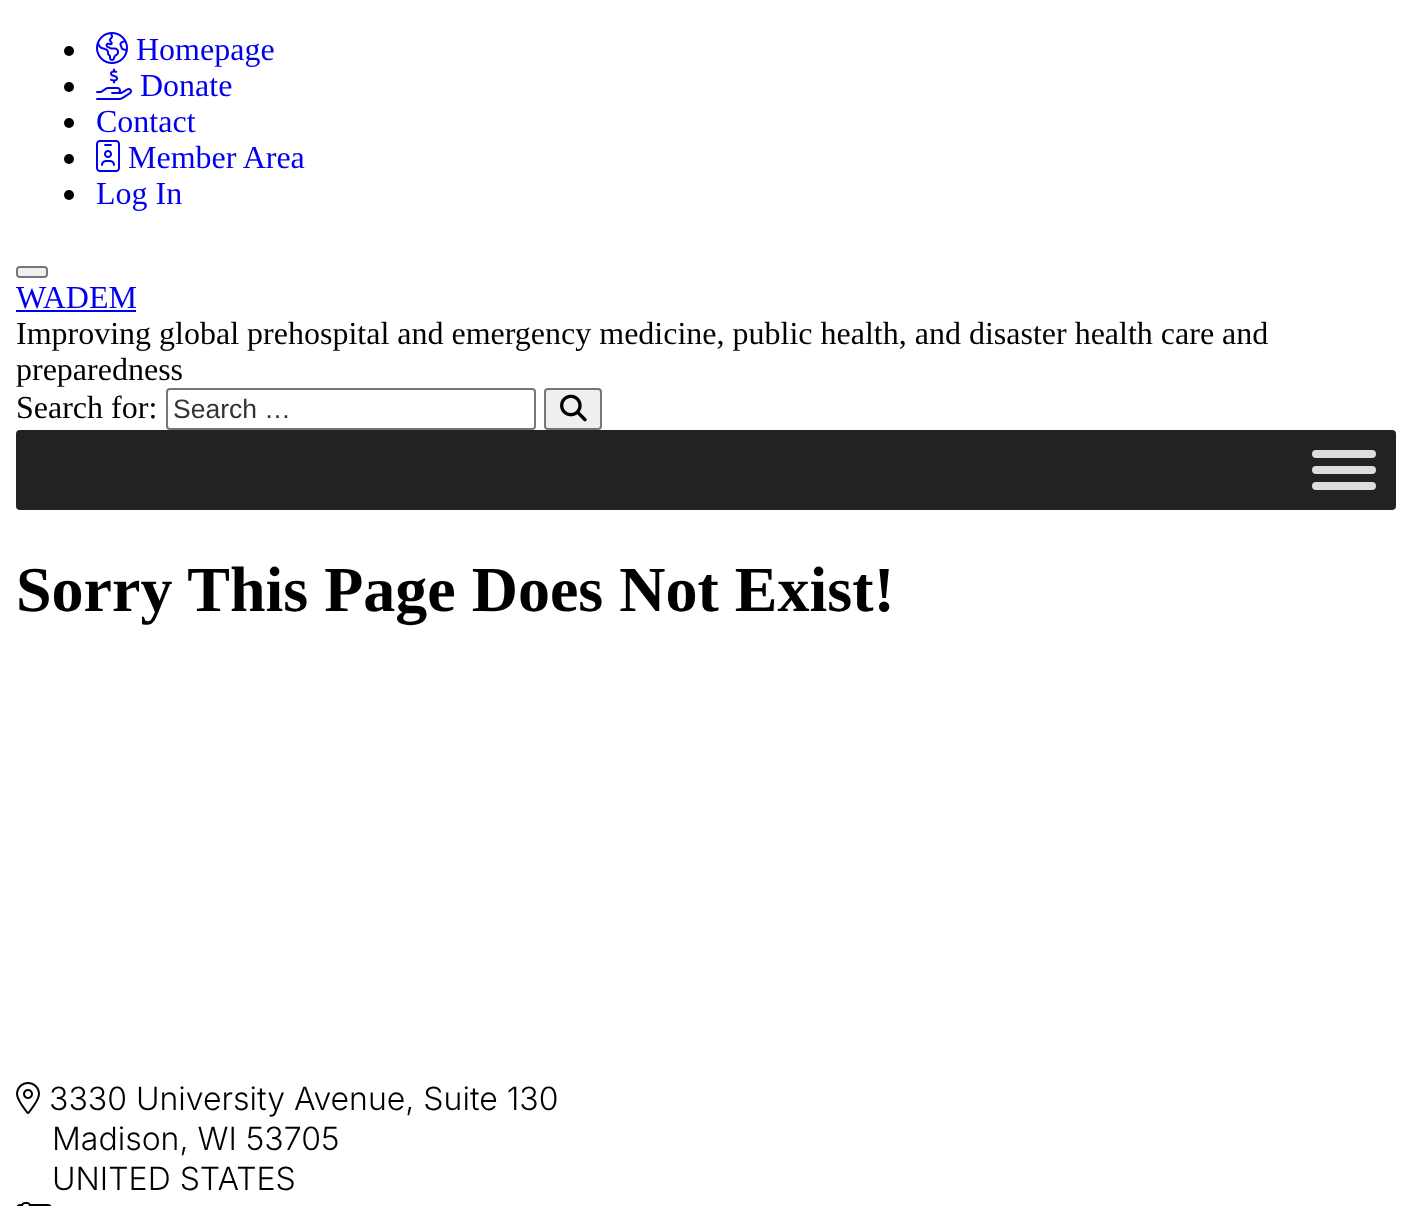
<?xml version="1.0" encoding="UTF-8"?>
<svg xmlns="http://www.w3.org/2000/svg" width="1411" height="1206">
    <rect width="100%" height="100%" fill="#FFFFFF"/>
    <circle cx="69" cy="51" r="5" fill="#000000"/>
    <image x="96" y="32" width="32" height="32" href="img_01.png"/>
    <text x="136" y="60" font-family="Liberation Serif" font-size="32" fill="#0000EE">Homepage</text>
    <circle cx="69" cy="87" r="5" fill="#000000"/>
    <image x="96" y="68" width="36" height="32" href="img_02.png"/>
    <text x="140" y="96" font-family="Liberation Serif" font-size="32" fill="#0000EE">Donate</text>
    <circle cx="69" cy="123" r="5" fill="#000000"/>
    <text x="96" y="132" font-family="Liberation Serif" font-size="32" fill="#0000EE">Contact</text>
    <circle cx="69" cy="159" r="5" fill="#000000"/>
    <image x="96" y="140" width="24" height="32" href="img_03.png"/>
    <text x="128" y="168" font-family="Liberation Serif" font-size="32" fill="#0000EE">Member Area</text>
    <circle cx="69" cy="195" r="5" fill="#000000"/>
    <text x="96" y="204" font-family="Liberation Serif" font-size="32" fill="#0000EE">Log In</text>
    <rect x="17" y="267" width="30" height="10" rx="3" fill="#EFEFEF" stroke="#767676" stroke-width="2"/>
    <text x="16" y="308" font-family="Liberation Serif" font-size="32" fill="#0000EE">WADEM</text>
    <rect x="16" y="310" width="120" height="2" fill="#0000EE"/>
    <text font-family="Liberation Serif" font-size="32" fill="#000000">
        <tspan x="16" y="344">Improving global prehospital and emergency medicine, public health, and disaster health care and</tspan>
        <tspan x="16" y="380">preparedness</tspan>
        <tspan x="16" y="418">Search for:</tspan>
    </text>
    <rect x="167" y="389" width="368" height="40" rx="3" fill="none" stroke="#767676" stroke-width="2"/>
    <text x="173" y="418" font-family="Liberation Sans" font-size="26.5" fill="#333333">Search …</text>
    <rect x="545" y="389" width="56" height="40" rx="3" fill="#EFEFEF" stroke="#767676" stroke-width="2"/>
    <image x="560" y="394" width="27" height="28" href="img_04.png"/>
    <rect x="16" y="430" width="1380" height="80" rx="4" fill="#222222"/>
    <rect x="1312" y="450" width="64" height="8" rx="4" fill="#DDDDDD"/>
    <rect x="1312" y="466" width="64" height="8" rx="4" fill="#DDDDDD"/>
    <rect x="1312" y="482" width="64" height="8" rx="4" fill="#DDDDDD"/>
    <text x="16" y="611" font-family="Liberation Serif" font-size="64" font-weight="700" fill="#000000">Sorry This Page Does Not Exist!</text>
    <image x="16" y="1082" width="24" height="32" href="img_05.png"/>
    <text x="49" y="1110" font-family="Inter" font-size="32" font-weight="300" fill="#000000">3330 University Avenue, Suite 130</text>
    <text font-family="Inter" font-size="32" font-weight="300" fill="#000000">
        <tspan x="52" y="1150">Madison, WI 53705</tspan>
        <tspan x="52" y="1190">UNITED STATES</tspan>
    </text>
    <image x="16" y="1202" width="36" height="4" href="img_06.png"/>
</svg>
